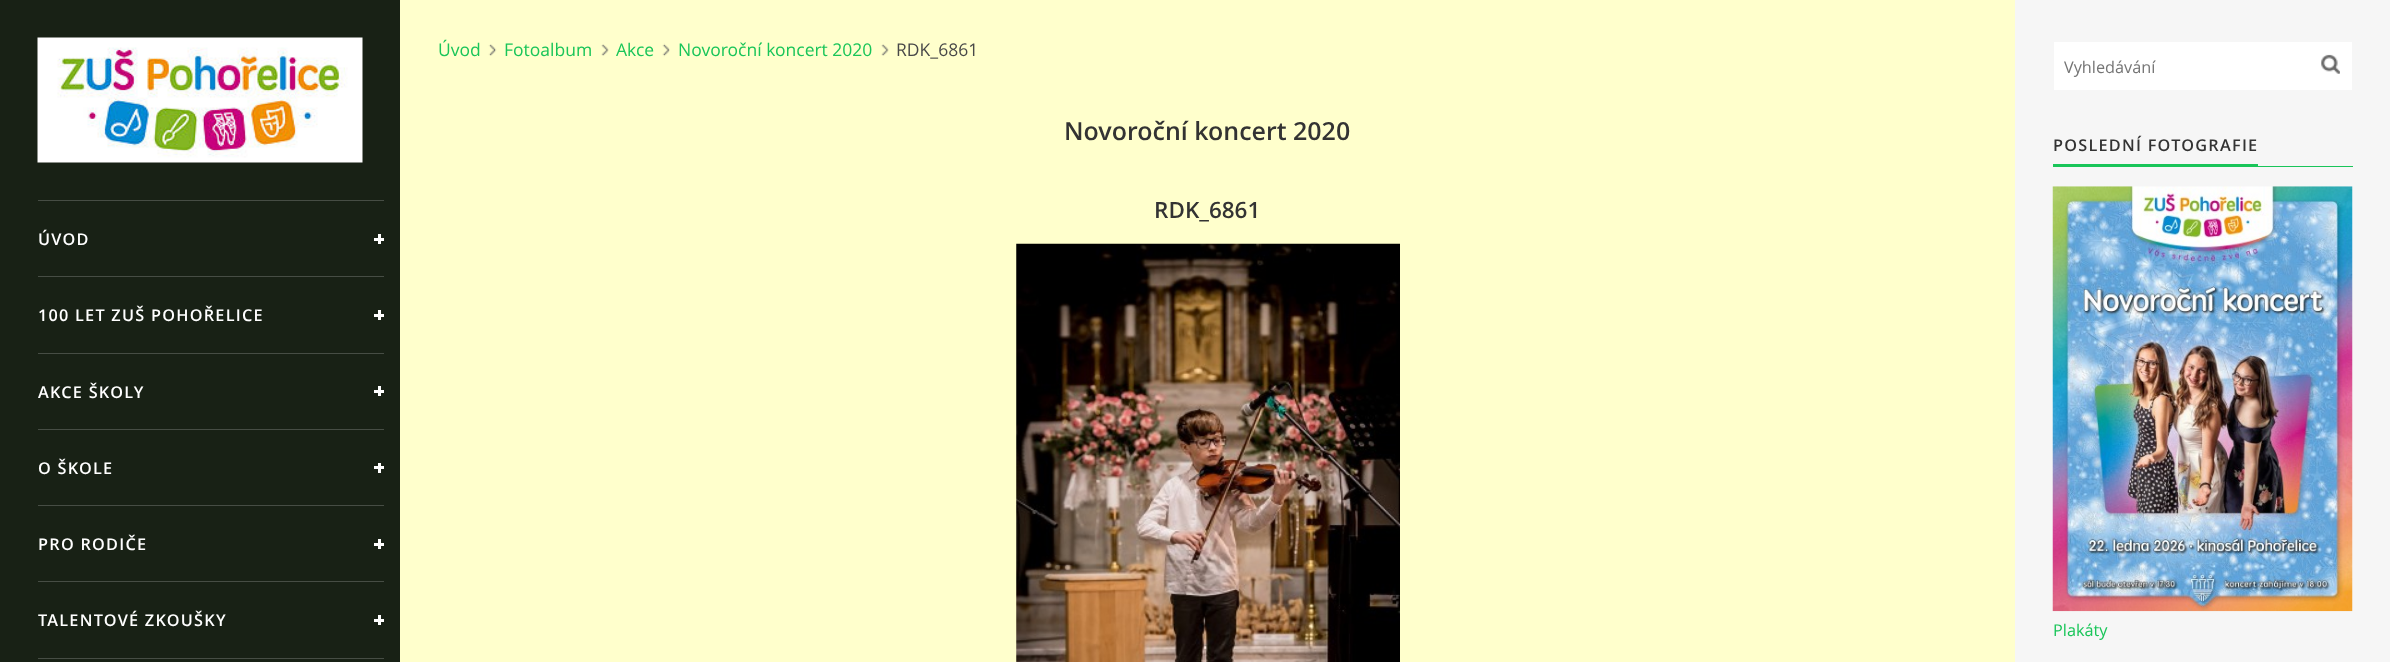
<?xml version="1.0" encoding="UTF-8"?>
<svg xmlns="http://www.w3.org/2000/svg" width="2390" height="662">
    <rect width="100%" height="100%" fill="#182115"/>
    <image x="37" y="37" width="326" height="126" href="img_01.png"/>
    <rect x="38" y="200" width="346" height="1" fill="#464D44"/>
    <text x="38" y="245" font-family="Open Sans" font-size="16.25" font-weight="600" letter-spacing="1.25" fill="#FFFFFF">ÚVOD</text>
    <rect x="374" y="238" width="10" height="3" fill="#FFFFFF"/>
    <rect x="378" y="234" width="3" height="10" fill="#FFFFFF"/>
    <rect x="38" y="276" width="346" height="1" fill="#464D44"/>
    <text x="38" y="321" font-family="Open Sans" font-size="16.25" font-weight="600" letter-spacing="1.25" fill="#FFFFFF">100 LET ZUŠ POHOŘELICE</text>
    <rect x="374" y="314" width="10" height="3" fill="#FFFFFF"/>
    <rect x="378" y="310" width="3" height="10" fill="#FFFFFF"/>
    <rect x="38" y="353" width="346" height="1" fill="#464D44"/>
    <text x="38" y="398" font-family="Open Sans" font-size="16.25" font-weight="600" letter-spacing="1.25" fill="#FFFFFF">AKCE ŠKOLY</text>
    <rect x="374" y="390" width="10" height="3" fill="#FFFFFF"/>
    <rect x="378" y="386" width="3" height="10" fill="#FFFFFF"/>
    <rect x="38" y="429" width="346" height="1" fill="#464D44"/>
    <text x="38" y="474" font-family="Open Sans" font-size="16.25" font-weight="600" letter-spacing="1.25" fill="#FFFFFF">O ŠKOLE</text>
    <rect x="374" y="466" width="10" height="3" fill="#FFFFFF"/>
    <rect x="378" y="463" width="3" height="10" fill="#FFFFFF"/>
    <rect x="38" y="505" width="346" height="1" fill="#464D44"/>
    <text x="38" y="550" font-family="Open Sans" font-size="16.25" font-weight="600" letter-spacing="1.25" fill="#FFFFFF">PRO RODIČE</text>
    <rect x="374" y="543" width="10" height="3" fill="#FFFFFF"/>
    <rect x="378" y="539" width="3" height="10" fill="#FFFFFF"/>
    <rect x="38" y="581" width="346" height="1" fill="#464D44"/>
    <text x="38" y="626" font-family="Open Sans" font-size="16.25" font-weight="600" letter-spacing="1.25" fill="#FFFFFF">TALENTOVÉ ZKOUŠKY</text>
    <rect x="374" y="619" width="10" height="3" fill="#FFFFFF"/>
    <rect x="378" y="615" width="3" height="10" fill="#FFFFFF"/>
    <rect x="38" y="658" width="346" height="1" fill="#464D44"/>
    <rect x="400" y="0" width="1615" height="662" fill="#FFFFCC"/>
    <image x="488" y="44" width="9" height="12" href="img_02.png"/>
    <text x="438" y="56" font-family="Open Sans" font-size="17.5" fill="#19C559">Úvod</text>
    <image x="601" y="44" width="8" height="12" href="img_03.png"/>
    <text x="504" y="56" font-family="Open Sans" font-size="17.5" fill="#19C559">Fotoalbum</text>
    <image x="662" y="43" width="8" height="14" href="img_04.png"/>
    <text x="616" y="56" font-family="Open Sans" font-size="17.5" fill="#19C559">Akce</text>
    <image x="881" y="44" width="8" height="12" href="img_03.png"/>
    <text x="678" y="56" font-family="Open Sans" font-size="17.5" fill="#19C559">Novoroční koncert 2020</text>
    <text x="896" y="56" font-family="Open Sans" font-size="17.5" fill="#484848">RDK_6861</text>
    <text x="1064" y="140" font-family="Open Sans" font-size="25" font-weight="600" fill="#333333">Novoroční koncert 2020</text>
    <text x="1154" y="218" font-family="Open Sans" font-size="22.5" font-weight="600" fill="#333333">RDK_6861</text>
    <image x="1016" y="243" width="384" height="419" href="img_05.png"/>
    <rect x="2015" y="0" width="375" height="662" fill="#F6F6F6"/>
    <rect x="2054" y="42" width="298" height="48" fill="#FFFFFF"/>
    <text x="2064" y="73" font-family="Open Sans" font-size="16.25" fill="#757575">Vyhledávání</text>
    <image x="2321" y="54" width="19" height="20" href="img_06.png"/>
    <text x="2053" y="151" font-family="Open Sans" font-size="16.25" font-weight="600" letter-spacing="1.25" fill="#333333">POSLEDNÍ FOTOGRAFIE</text>
    <rect x="2053" y="164" width="205" height="2" fill="#19C559"/>
    <rect x="2053" y="166" width="300" height="1" fill="#19C559"/>
    <image x="2052" y="186" width="301" height="426" href="img_07.png"/>
    <text x="2053" y="636" font-family="Open Sans" font-size="16.25" fill="#19C559">Plakáty</text>
</svg>
